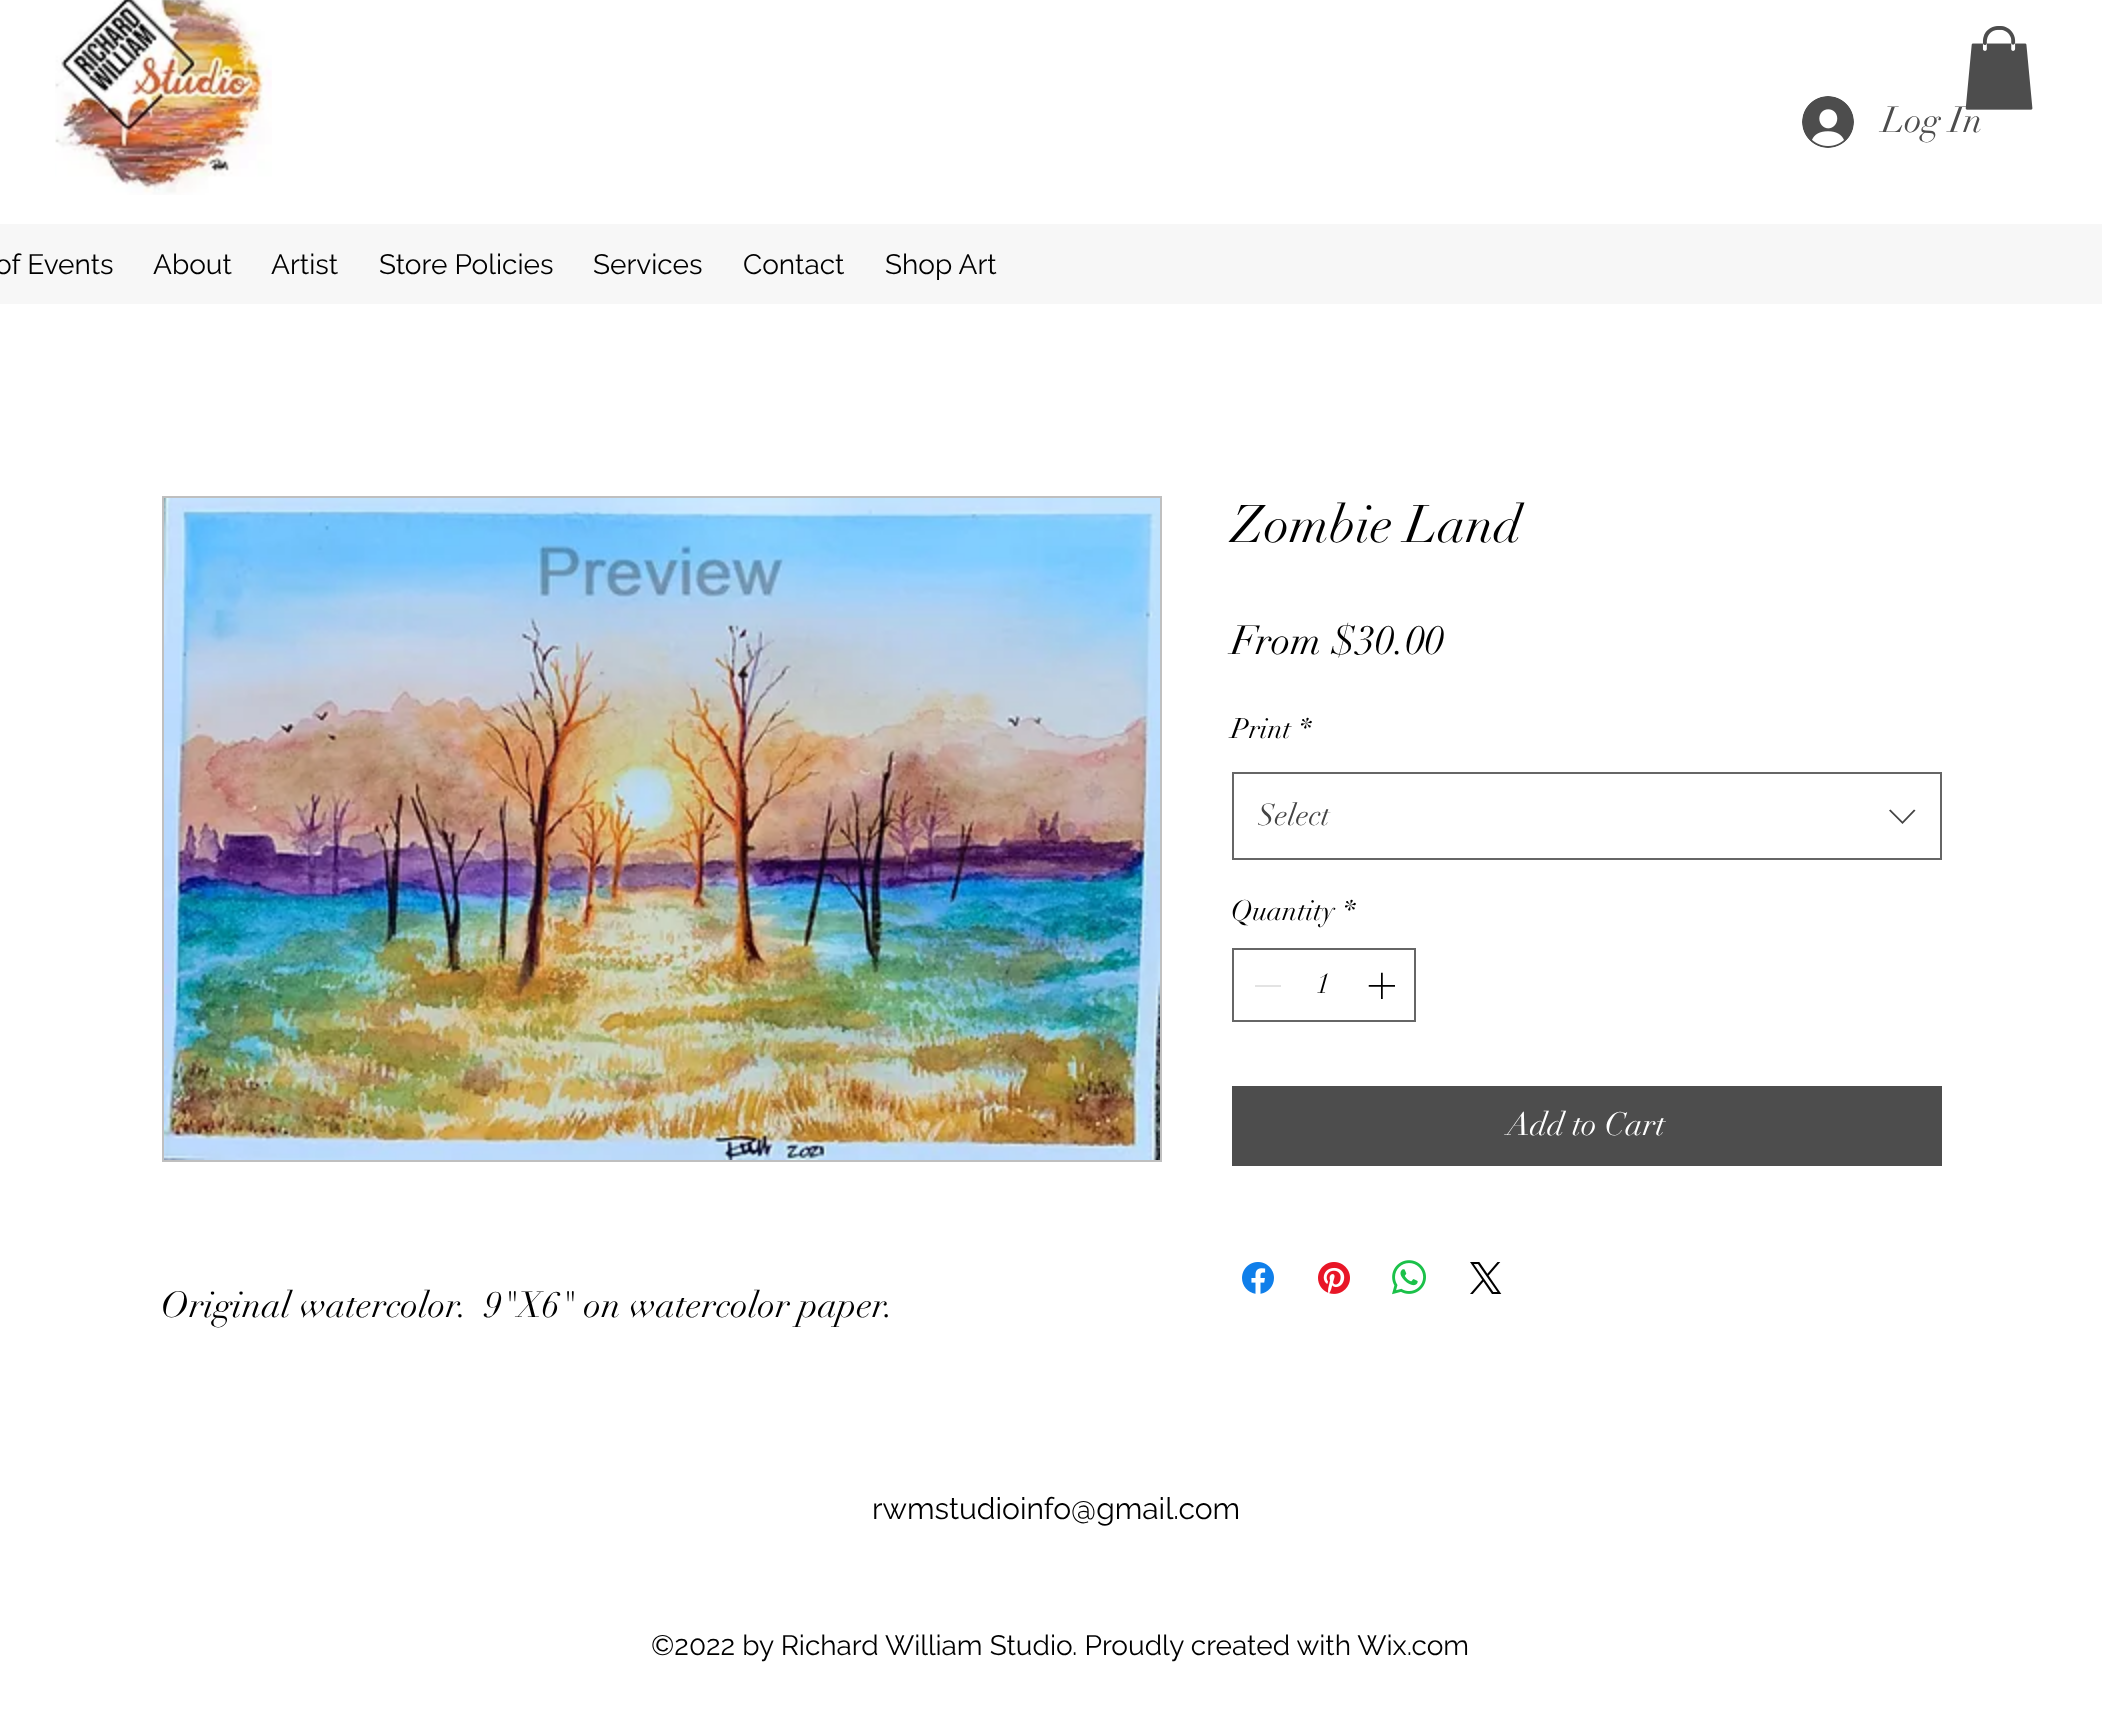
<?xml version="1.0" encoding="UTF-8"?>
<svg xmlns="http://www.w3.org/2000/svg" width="2102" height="1736">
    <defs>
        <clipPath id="clip1"><rect x="1258" y="790" width="614" height="52"/></clipPath>
    </defs>
    <rect width="100%" height="100%" fill="#FFFFFF"/>
    <image x="55" y="0" width="217" height="195" href="img_01.png"/>
    <image x="1965" y="26" width="68" height="84" href="img_02.png"/>
    <image x="1802" y="96" width="52" height="52" href="img_03.png"/>
    <text x="1882" y="132" font-family="didot" font-size="36" fill="#4D4D4D">Log In</text>
    <rect x="0" y="224" width="2102" height="80" fill="#F7F7F7"/>
    <text x="-5" y="274" font-family="Raleway" font-size="28" fill="#000000">of Events</text>
    <text x="153" y="274" font-family="Raleway" font-size="28" fill="#000000">About</text>
    <text x="271" y="274" font-family="Raleway" font-size="28" fill="#000000">Artist</text>
    <text x="379" y="274" font-family="Raleway" font-size="28" fill="#000000">Store Policies</text>
    <text x="593" y="274" font-family="Raleway" font-size="28" fill="#000000">Services</text>
    <text x="743" y="274" font-family="Raleway" font-size="28" fill="#000000">Contact</text>
    <text x="885" y="274" font-family="Raleway" font-size="28" fill="#000000">Shop Art</text>
    <text x="1231" y="542" font-family="didot" font-size="52" fill="#000000">Zombie Land</text>
    <text x="1231" y="654" font-family="didot" font-size="40" fill="#000000">From $30.00</text>
    <text x="1231" y="738" font-family="didot" font-size="28" fill="#000000">Print</text>
    <text x="1299" y="738" font-family="didot" font-size="28" fill="#000000">*</text>
    <rect x="1233" y="773" width="708" height="86" fill="none" stroke="#666666" stroke-width="2"/>
    <g clip-path="url(#clip1)">
        <text x="1257" y="825" font-family="didot" font-size="30" fill="#444444">Select</text>
    </g>
    <path d="M 1914 809.5 L 1915.5 810.5 L 1902.5 824 L 1889 810.5 L 1890.5 809.5 L 1902.5 821.5 Z" fill="#444444" fill-rule="evenodd"/>
    <text x="1231" y="920" font-family="didot" font-size="28" fill="#000000">Quantity</text>
    <text x="1343" y="920" font-family="didot" font-size="28" fill="#000000">*</text>
    <rect x="1233" y="949" width="182" height="72" fill="none" stroke="#666666" stroke-width="2"/>
    <rect x="1255" y="985" width="26" height="2" fill="#E3E3E3"/>
    <text x="1316" y="993" font-family="didot" font-size="28" fill="#000000">1</text>
    <image x="1368" y="972" width="27" height="27" href="img_04.png"/>
    <rect x="1232" y="1086" width="710" height="80" fill="#4D4D4D"/>
    <text x="1507" y="1135" font-family="didot" font-size="32" fill="#FFFFFF">Add to Cart</text>
    <image x="1242" y="1262" width="32" height="32" href="img_05.png"/>
    <image x="1318" y="1262" width="32" height="32" href="img_06.png"/>
    <image x="1392" y="1260" width="34" height="35" href="img_07.png"/>
    <image x="1470" y="1262" width="32" height="32" href="img_08.png"/>
    <rect x="163" y="497" width="998" height="664" fill="none" stroke="#BFBFBF" stroke-width="2"/>
    <image x="164" y="498" width="996" height="662" href="img_09.png"/>
    <text x="161" y="1317" font-family="didot" font-size="36" fill="#000000" xml:space="preserve">Original watercolor.  9"X6" on watercolor paper.</text>
    <text x="872" y="1519" font-family="Raleway" font-size="30" fill="#000000">rwmstudioinfo@gmail.com</text>
    <text x="651" y="1655" font-family="Raleway" font-size="28" fill="#000000">©2022 by Richard William Studio. Proudly created with Wix.com</text>
</svg>
